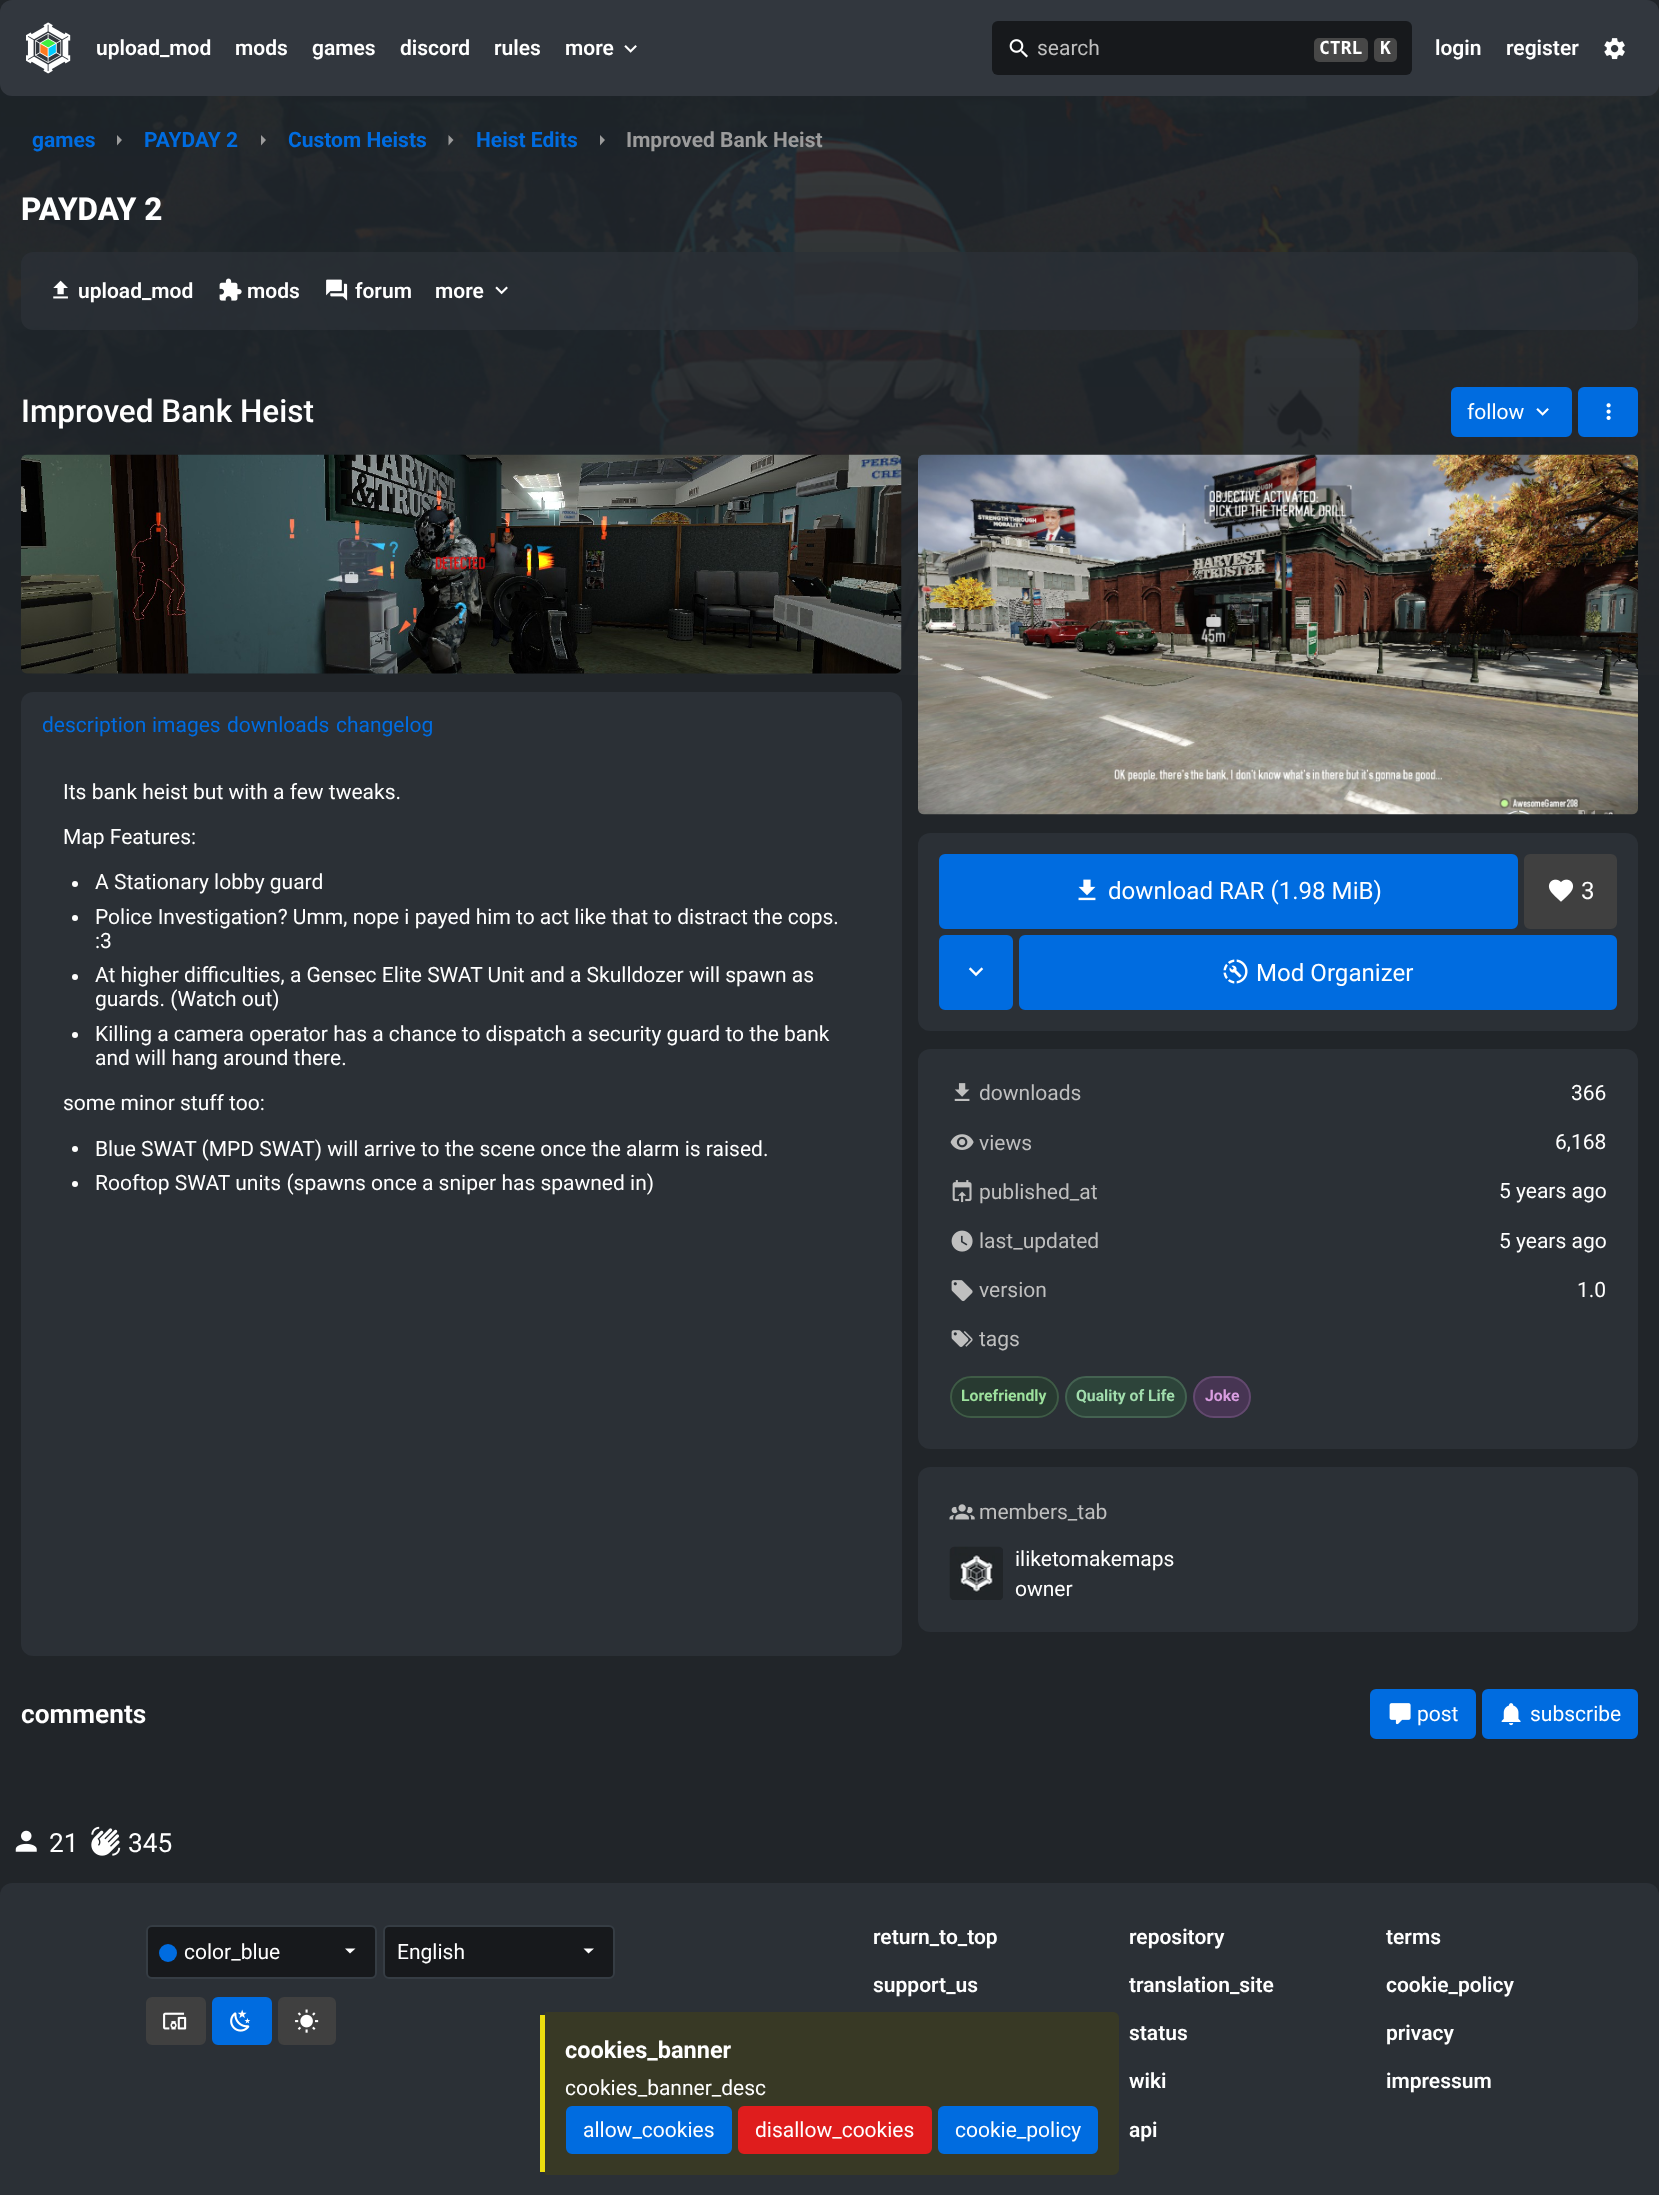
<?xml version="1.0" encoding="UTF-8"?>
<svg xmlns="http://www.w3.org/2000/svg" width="1659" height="2195">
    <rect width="100%" height="100%" fill="#212529"/>
    <image x="0" y="84" width="1659" height="591" href="img_05.png"/>
    <rect x="0" y="0" width="1659" height="96" rx="12" fill="#32373E"/>
    <image x="26" y="22" width="45" height="52" href="img_01.png"/>
    <text x="96" y="55" font-family="Roboto" font-size="21" font-weight="600" fill="#FFFFFF">upload_mod</text>
    <text x="235" y="55" font-family="Roboto" font-size="21" font-weight="600" fill="#FFFFFF">mods</text>
    <text x="312" y="55" font-family="Roboto" font-size="21" font-weight="600" fill="#FFFFFF">games</text>
    <text x="400" y="55" font-family="Roboto" font-size="21" font-weight="600" fill="#FFFFFF">discord</text>
    <text x="494" y="55" font-family="Roboto" font-size="21" font-weight="600" fill="#FFFFFF">rules</text>
    <text x="565" y="55" font-family="Roboto" font-size="21" font-weight="600" fill="#FFFFFF">more</text>
    <image x="624" y="45" width="13" height="8" href="img_02.png"/>
    <rect x="992" y="21" width="420" height="54" rx="6" fill="#17191C"/>
    <image x="1009" y="39" width="19" height="19" href="img_03.png"/>
    <text x="1037" y="55" font-family="Roboto" font-size="21" fill="#BFBFBF">search</text>
    <rect x="1314" y="38" width="54" height="24" rx="5" fill="#474747"/>
    <text x="1319" y="54" font-family="DejaVu Sans Mono" font-size="18" font-weight="700" fill="#FFFFFF">CTRL</text>
    <rect x="1374" y="38" width="23" height="24" rx="5" fill="#474747"/>
    <text x="1380" y="54" font-family="DejaVu Sans Mono" font-size="18" font-weight="700" fill="#FFFFFF">K</text>
    <text x="1435" y="55" font-family="Roboto" font-size="21" font-weight="600" fill="#FFFFFF">login</text>
    <text x="1506" y="55" font-family="Roboto" font-size="21" font-weight="600" fill="#FFFFFF">register</text>
    <image x="1604" y="38" width="21" height="22" href="img_04.png"/>
    <text x="32" y="147" font-family="Roboto" font-size="21" font-weight="700" fill="#006CE0">games</text>
    <path d="M 117 145.5 L 122 140 L 117 135 Z" fill="#9C9C9C"/>
    <text x="144" y="147" font-family="Roboto" font-size="21" font-weight="700" fill="#006CE0">PAYDAY 2</text>
    <path d="M 261 145.5 L 266 140 L 261 135 Z" fill="#9C9C9C"/>
    <text x="288" y="147" font-family="Roboto" font-size="21" font-weight="700" fill="#006CE0">Custom Heists</text>
    <path d="M 448.5 145.5 L 453.5 140 L 448.5 135 Z" fill="#9C9C9C"/>
    <text x="476" y="147" font-family="Roboto" font-size="21" font-weight="700" fill="#006CE0">Heist Edits</text>
    <path d="M 600 145.5 L 605 140 L 600 135 Z" fill="#9C9C9C"/>
    <text x="626" y="147" font-family="Roboto" font-size="21" font-weight="700" fill="#9C9C9C">Improved Bank Heist</text>
    <text x="21" y="220" font-family="Roboto" font-size="31.5" font-weight="800" fill="#FFFFFF">PAYDAY 2</text>
    <rect x="21" y="252" width="1617" height="78" rx="12" fill="#2B3036" fill-opacity="0.81"/>
    <image x="53" y="280" width="15" height="19" href="img_06.png"/>
    <text x="78" y="298" font-family="Roboto" font-size="21" font-weight="600" fill="#FFFFFF">upload_mod</text>
    <image x="219" y="278" width="23" height="23" href="img_07.png"/>
    <text x="247" y="298" font-family="Roboto" font-size="21" font-weight="600" fill="#FFFFFF">mods</text>
    <image x="326" y="279" width="22" height="22" href="img_08.png"/>
    <text x="355" y="298" font-family="Roboto" font-size="21" font-weight="600" fill="#FFFFFF">forum</text>
    <text x="435" y="298" font-family="Roboto" font-size="21" font-weight="600" fill="#FFFFFF">more</text>
    <image x="495" y="286" width="13" height="9" href="img_09.png"/>
    <text x="21" y="422" font-family="Roboto" font-size="31.5" font-weight="500" fill="#FFFFFF">Improved Bank Heist</text>
    <rect x="1452" y="388" width="119" height="48" rx="5" fill="#006CE0" stroke="#006CE0" stroke-width="2"/>
    <text x="1467" y="419" font-family="Roboto" font-size="21" fill="#FFFFFF">follow</text>
    <image x="1536" y="408" width="13" height="8" href="img_10.png"/>
    <rect x="1579" y="388" width="58" height="48" rx="5" fill="#006CE0" stroke="#006CE0" stroke-width="2"/>
    <image x="1606" y="403" width="5" height="17" href="img_11.png"/>
    <image x="21" y="454" width="881" height="220" href="img_12.png"/>
    <rect x="21" y="692" width="881" height="964" rx="12" fill="#2B3036"/>
    <text x="42" y="732" font-family="Roboto" font-size="21" fill="#006CE0">description</text>
    <text x="152" y="732" font-family="Roboto" font-size="21" fill="#006CE0">images</text>
    <text x="227" y="732" font-family="Roboto" font-size="21" fill="#006CE0">downloads</text>
    <text x="336" y="732" font-family="Roboto" font-size="21" fill="#006CE0">changelog</text>
    <text x="63" y="799" font-family="Roboto" font-size="21" fill="#FFFFFF">Its bank heist but with a few tweaks.</text>
    <text x="63" y="844" font-family="Roboto" font-size="21" fill="#FFFFFF">Map Features:</text>
    <circle cx="75" cy="884" r="3" fill="#FFFFFF"/>
    <text x="95" y="889" font-family="Roboto" font-size="21" fill="#FFFFFF">A Stationary lobby guard</text>
    <circle cx="75" cy="918" r="3" fill="#FFFFFF"/>
    <text font-family="Roboto" font-size="21" fill="#FFFFFF">
        <tspan x="95" y="924">Police Investigation? Umm, nope i payed him to act like that to distract the cops.</tspan>
        <tspan x="95" y="948">:3</tspan>
    </text>
    <circle cx="75" cy="977" r="3" fill="#FFFFFF"/>
    <text font-family="Roboto" font-size="21" fill="#FFFFFF">
        <tspan x="95" y="982">At higher difficulties, a Gensec Elite SWAT Unit and a Skulldozer will spawn as</tspan>
        <tspan x="95" y="1006">guards. (Watch out)</tspan>
    </text>
    <circle cx="75" cy="1035" r="3" fill="#FFFFFF"/>
    <text font-family="Roboto" font-size="21" fill="#FFFFFF">
        <tspan x="95" y="1041">Killing a camera operator has a chance to dispatch a security guard to the bank</tspan>
        <tspan x="95" y="1065">and will hang around there.</tspan>
    </text>
    <text x="63" y="1110" font-family="Roboto" font-size="21" fill="#FFFFFF">some minor stuff too:</text>
    <circle cx="75" cy="1149" r="3" fill="#FFFFFF"/>
    <text x="95" y="1156" font-family="Roboto" font-size="21" fill="#FFFFFF">Blue SWAT (MPD SWAT) will arrive to the scene once the alarm is raised.</text>
    <circle cx="75" cy="1184" r="3" fill="#FFFFFF"/>
    <text x="95" y="1190" font-family="Roboto" font-size="21" fill="#FFFFFF">Rooftop SWAT units (spawns once a sniper has spawned in)</text>
    <image x="918" y="454" width="720" height="361" href="img_13.png"/>
    <rect x="918" y="833" width="720" height="198" rx="12" fill="#2B3036"/>
    <rect x="940" y="855" width="577" height="73" rx="5" fill="#006CE0" stroke="#006CE0" stroke-width="2"/>
    <image x="1078" y="879" width="18" height="22" href="img_14.png"/>
    <text x="1108" y="899" font-family="Roboto" font-size="24.1" fill="#FFFFFF">download RAR (1.98 MiB)</text>
    <rect x="1525" y="855" width="91" height="73" rx="5" fill="#404040" stroke="#404040" stroke-width="2"/>
    <image x="1548" y="879" width="26" height="23" href="img_15.png"/>
    <text x="1581" y="899" font-family="Roboto" font-size="24.1" fill="#FFFFFF">3</text>
    <rect x="940" y="936" width="72" height="73" rx="5" fill="#006CE0" stroke="#006CE0" stroke-width="2"/>
    <image x="968" y="967" width="16" height="10" href="img_16.png"/>
    <rect x="1020" y="936" width="596" height="73" rx="5" fill="#006CE0" stroke="#006CE0" stroke-width="2"/>
    <image x="1223" y="959" width="25" height="25" href="img_17.png"/>
    <text x="1256" y="981" font-family="Roboto" font-size="24.1" fill="#FFFFFF">Mod Organizer</text>
    <rect x="918" y="1049" width="720" height="400" rx="12" fill="#2B3036"/>
    <image x="954" y="1083" width="16" height="18" href="img_18.png"/>
    <text x="979" y="1100" font-family="Roboto" font-size="21" fill="#BFBFBF">downloads</text>
    <text x="1571" y="1100" font-family="Roboto" font-size="21" fill="#FFFFFF">366</text>
    <image x="950" y="1134" width="24" height="16" href="img_19.png"/>
    <text x="979" y="1150" font-family="Roboto" font-size="21" fill="#BFBFBF">views</text>
    <text x="1555" y="1149" font-family="Roboto" font-size="21" fill="#FFFFFF">6,168</text>
    <image x="952" y="1180" width="20" height="23" href="img_20.png"/>
    <text x="979" y="1199" font-family="Roboto" font-size="21" fill="#BFBFBF">published_at</text>
    <text x="1499" y="1198" font-family="Roboto" font-size="21" fill="#FFFFFF">5 years ago</text>
    <image x="951" y="1230" width="22" height="22" href="img_21.png"/>
    <text x="979" y="1248" font-family="Roboto" font-size="21" fill="#BFBFBF">last_updated</text>
    <text x="1499" y="1248" font-family="Roboto" font-size="21" fill="#FFFFFF">5 years ago</text>
    <image x="951" y="1280" width="22" height="22" href="img_22.png"/>
    <text x="979" y="1297" font-family="Roboto" font-size="21" fill="#BFBFBF">version</text>
    <text x="1577" y="1297" font-family="Roboto" font-size="21" fill="#FFFFFF">1.0</text>
    <image x="951" y="1330" width="22" height="17" href="img_23.png"/>
    <text x="979" y="1346" font-family="Roboto" font-size="21" fill="#BFBFBF">tags</text>
    <rect x="950" y="1376" width="109" height="42" rx="21" fill="#283A31"/>
    <rect x="951" y="1377" width="107" height="40" rx="20" fill="none" stroke="#9DE19D" stroke-opacity="0.2" stroke-width="2"/>
    <text x="961" y="1401" font-family="Roboto" font-size="15.75" font-weight="700" fill="#9DE19D">Lorefriendly</text>
    <rect x="1065" y="1376" width="122" height="42" rx="21" fill="#2D443A"/>
    <rect x="1066" y="1377" width="120" height="40" rx="20" fill="none" stroke="#A1DDAD" stroke-opacity="0.2" stroke-width="2"/>
    <text x="1076" y="1401" font-family="Roboto" font-size="15.75" font-weight="700" fill="#A1DDAD">Quality of Life</text>
    <rect x="1193" y="1376" width="58" height="42" rx="21" fill="#473553"/>
    <rect x="1194" y="1377" width="56" height="40" rx="20" fill="none" stroke="#D99DE1" stroke-opacity="0.2" stroke-width="2"/>
    <text x="1205" y="1401" font-family="Roboto" font-size="15.75" font-weight="700" fill="#D99DE1">Joke</text>
    <rect x="918" y="1467" width="720" height="165" rx="12" fill="#2B3036"/>
    <image x="949" y="1504" width="26" height="16" href="img_24.png"/>
    <text x="979" y="1519" font-family="Roboto" font-size="21" fill="#BFBFBF">members_tab</text>
    <image x="949" y="1546" width="54" height="54" href="img_25.png"/>
    <text font-family="Roboto" font-size="21" fill="#FFFFFF">
        <tspan x="1015" y="1566">iliketomakemaps</tspan>
        <tspan x="1015" y="1596">owner</tspan>
    </text>
    <text x="21" y="1723" font-family="'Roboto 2'" font-size="26.25" font-weight="600" fill="#FFFFFF">comments</text>
    <rect x="1371" y="1690" width="104" height="48" rx="5" fill="#006CE0" stroke="#006CE0" stroke-width="2"/>
    <image x="1389" y="1703" width="22" height="22" href="img_26.png"/>
    <text x="1417" y="1721" font-family="Roboto" font-size="21" fill="#FFFFFF">post</text>
    <rect x="1483" y="1690" width="154" height="48" rx="5" fill="#006CE0" stroke="#006CE0" stroke-width="2"/>
    <image x="1501" y="1703" width="20" height="23" href="img_27.png"/>
    <text x="1530" y="1721" font-family="Roboto" font-size="21" fill="#FFFFFF">subscribe</text>
    <image x="15" y="1830" width="22" height="22" href="img_28.png"/>
    <text x="49" y="1852" font-family="Roboto" font-size="26.25" fill="#FFFFFF">21</text>
    <image x="91" y="1826" width="30" height="30" href="img_29.png"/>
    <text x="128" y="1852" font-family="Roboto" font-size="26.25" fill="#FFFFFF">345</text>
    <rect x="0" y="1883" width="1659" height="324" rx="12" fill="#2B3036"/>
    <rect x="147" y="1926" width="229" height="52" rx="5" fill="#17191C" stroke="#363D44" stroke-width="2"/>
    <circle cx="168" cy="1953" r="9" fill="#006CE0"/>
    <text x="184" y="1959" font-family="Roboto" font-size="21" fill="#FFFFFF">color_blue</text>
    <path d="M 345 1948.5 L 350 1953.5 L 355.5 1948.5 Z" fill="#FFFFFF"/>
    <rect x="384" y="1926" width="230" height="52" rx="5" fill="#17191C" stroke="#363D44" stroke-width="2"/>
    <text x="397" y="1959" font-family="Roboto" font-size="21" fill="#FFFFFF">English</text>
    <path d="M 583.5 1948.5 L 588.5 1953.5 L 594 1948.5 Z" fill="#FFFFFF"/>
    <rect x="147" y="1998" width="58" height="46" rx="5" fill="#404040" stroke="#404040" stroke-width="2"/>
    <image x="163" y="2012" width="24" height="18" href="img_30.png"/>
    <rect x="213" y="1998" width="58" height="46" rx="5" fill="#006CE0" stroke="#006CE0" stroke-width="2"/>
    <image x="230" y="2009" width="21" height="23" href="img_31.png"/>
    <rect x="279" y="1998" width="56" height="46" rx="5" fill="#404040" stroke="#404040" stroke-width="2"/>
    <image x="295" y="2009" width="24" height="24" href="img_32.png"/>
    <text x="873" y="1944" font-family="Roboto" font-size="21" font-weight="600" fill="#FFFFFF">return_to_top</text>
    <text x="873" y="1992" font-family="Roboto" font-size="21" font-weight="600" fill="#FFFFFF">support_us</text>
    <text x="1129" y="1944" font-family="Roboto" font-size="21" font-weight="600" fill="#FFFFFF">repository</text>
    <text x="1129" y="1992" font-family="Roboto" font-size="21" font-weight="600" fill="#FFFFFF">translation_site</text>
    <text x="1129" y="2040" font-family="Roboto" font-size="21" font-weight="600" fill="#FFFFFF">status</text>
    <text x="1129" y="2088" font-family="Roboto" font-size="21" font-weight="600" fill="#FFFFFF">wiki</text>
    <text x="1129" y="2137" font-family="Roboto" font-size="21" font-weight="600" fill="#FFFFFF">api</text>
    <text x="1386" y="1944" font-family="Roboto" font-size="21" font-weight="600" fill="#FFFFFF">terms</text>
    <text x="1386" y="1992" font-family="Roboto" font-size="21" font-weight="600" fill="#FFFFFF">cookie_policy</text>
    <text x="1386" y="2040" font-family="Roboto" font-size="21" font-weight="600" fill="#FFFFFF">privacy</text>
    <text x="1386" y="2088" font-family="Roboto" font-size="21" font-weight="600" fill="#FFFFFF">impressum</text>
    <path d="M 546 2012 H 1113 C 1116 2012 1119 2014 1119 2018 V 2169 C 1119 2172 1116 2175 1113 2175 H 546 C 545 2175 544 2172 544 2169 V 2018 C 544 2014 545 2012 546 2012 Z" fill="#383925"/>
    <rect x="540" y="2015" width="5" height="157" fill="#ECDD0F"/>
    <text x="565" y="2058" font-family="Roboto" font-size="23.5" font-weight="700" fill="#FFFFFF">cookies_banner</text>
    <text x="565" y="2095" font-family="Roboto" font-size="21" fill="#FFFFFF">cookies_banner_desc</text>
    <rect x="567" y="2107" width="164" height="46" rx="5" fill="#006CE0" stroke="#006CE0" stroke-width="2"/>
    <text x="583" y="2137" font-family="Roboto" font-size="21" fill="#FFFFFF">allow_cookies</text>
    <rect x="739" y="2107" width="192" height="46" rx="5" fill="#DF1D1D" stroke="#DF1D1D" stroke-width="2"/>
    <text x="755" y="2137" font-family="Roboto" font-size="21" fill="#FFFFFF">disallow_cookies</text>
    <rect x="939" y="2107" width="158" height="46" rx="5" fill="#006CE0" stroke="#006CE0" stroke-width="2"/>
    <text x="955" y="2137" font-family="Roboto" font-size="21" fill="#FFFFFF">cookie_policy</text>
</svg>
